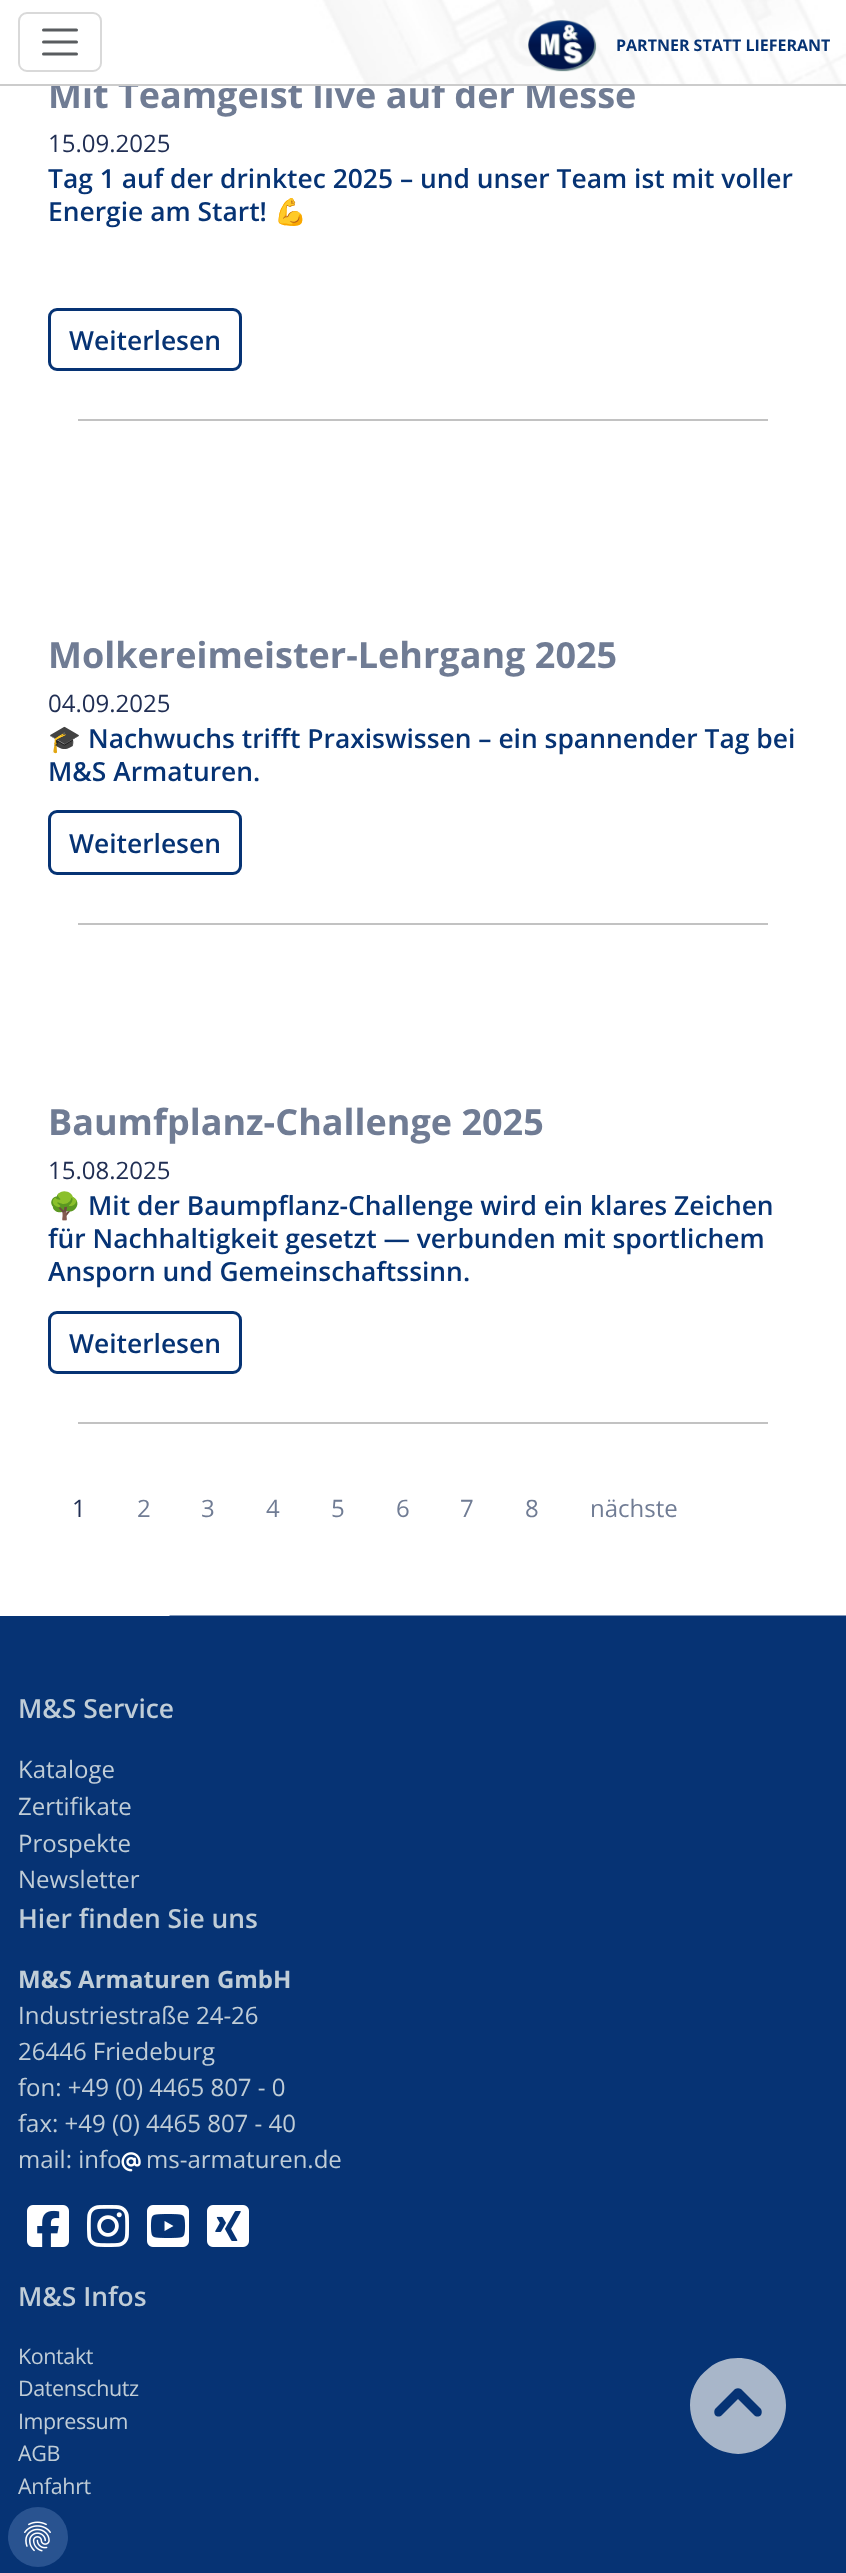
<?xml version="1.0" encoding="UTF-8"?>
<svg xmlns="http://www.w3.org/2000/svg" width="846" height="2573">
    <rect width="100%" height="100%" fill="#FFFFFF"/>
    <text x="48" y="108" font-family="Open Sans" font-size="36" font-weight="700" fill="#707C94">Mit Teamgeist live auf der Messe</text>
    <image x="0" y="0" width="846" height="84" href="img_01.png"/>
    <rect x="0" y="84" width="846" height="2" fill="#CCCCCC"/>
    <rect x="19" y="13" width="82" height="58" rx="8" fill="none" stroke="#D9D9D9" stroke-width="2"/>
    <path d="M 43.5 30 H 76.5 M 43.5 42 H 76.5 M 43.5 54 H 76.5" fill="none" stroke="#595C5F" stroke-width="3" stroke-linecap="round"/>
    <image x="528" y="20" width="69" height="52" href="img_02.png"/>
    <text x="616" y="51" font-family="Open Sans" font-size="16" font-weight="700" fill="#063374">PARTNER STATT LIEFERANT</text>
    <text x="48" y="152" font-family="Open Sans" font-size="24" fill="#202E53">15.09.2025</text>
    <text font-family="Open Sans" font-size="26.4" font-weight="600" fill="#063374">
        <tspan x="48" y="188">Tag 1 auf der drinktec 2025 – und unser Team ist mit voller</tspan>
        <tspan x="48" y="221">Energie am Start!</tspan>
    </text>
    <text x="274" y="221" font-family="Noto Color Emoji" font-size="26.4" font-weight="700" fill="#063374">💪</text>
    <rect x="49.5" y="309.5" width="191" height="60" rx="7.5" fill="none" stroke="#063374" stroke-width="3"/>
    <text x="69" y="350" font-family="Open Sans" font-size="26.4" font-weight="600" fill="#063374">Weiterlesen</text>
    <rect x="78" y="419" width="690" height="2" fill="#C2C2C2"/>
    <text x="48" y="668" font-family="Open Sans" font-size="36" font-weight="700" fill="#707C94">Molkereimeister-Lehrgang 2025</text>
    <text x="48" y="712" font-family="Open Sans" font-size="24" fill="#202E53">04.09.2025</text>
    <text x="48" y="748" font-family="Noto Color Emoji" font-size="26.4" font-weight="700" fill="#063374">🎓</text>
    <text x="88" y="748" font-family="Open Sans" font-size="26.4" font-weight="600" fill="#063374">Nachwuchs trifft Praxiswissen – ein spannender Tag bei</text>
    <text x="48" y="781" font-family="Open Sans" font-size="26.4" font-weight="600" fill="#063374">M&amp;S Armaturen.</text>
    <rect x="49.5" y="811.5" width="191" height="62" rx="7.5" fill="none" stroke="#063374" stroke-width="3"/>
    <text x="69" y="853" font-family="Open Sans" font-size="26.4" font-weight="600" fill="#063374">Weiterlesen</text>
    <rect x="78" y="923" width="690" height="2" fill="#C2C2C2"/>
    <text x="48" y="1135" font-family="Open Sans" font-size="36" font-weight="700" fill="#707C94">Baumfplanz-Challenge 2025</text>
    <text x="48" y="1179" font-family="Open Sans" font-size="24" fill="#202E53">15.08.2025</text>
    <text x="48" y="1215" font-family="Noto Color Emoji" font-size="26.4" font-weight="700" fill="#063374">🌳</text>
    <text x="88" y="1215" font-family="Open Sans" font-size="26.4" font-weight="600" fill="#063374">Mit der Baumpflanz-Challenge wird ein klares Zeichen</text>
    <text font-family="Open Sans" font-size="26.4" font-weight="600" fill="#063374">
        <tspan x="48" y="1248">für Nachhaltigkeit gesetzt — verbunden mit sportlichem</tspan>
        <tspan x="48" y="1281">Ansporn und Gemeinschaftssinn.</tspan>
    </text>
    <rect x="49.5" y="1312.5" width="191" height="60" rx="7.5" fill="none" stroke="#063374" stroke-width="3"/>
    <text x="69" y="1353" font-family="Open Sans" font-size="26.4" font-weight="600" fill="#063374">Weiterlesen</text>
    <rect x="78" y="1422" width="690" height="2" fill="#C2C2C2"/>
    <text x="72" y="1517" font-family="Open Sans" font-size="24" fill="#202E53">1</text>
    <text x="137" y="1517" font-family="Open Sans" font-size="24" fill="#707C94">2</text>
    <text x="201" y="1517" font-family="Open Sans" font-size="24" fill="#707C94">3</text>
    <text x="266" y="1517" font-family="Open Sans" font-size="24" fill="#707C94">4</text>
    <text x="331" y="1517" font-family="Open Sans" font-size="24" fill="#707C94">5</text>
    <text x="396" y="1517" font-family="Open Sans" font-size="24" fill="#707C94">6</text>
    <text x="460" y="1517" font-family="Open Sans" font-size="24" fill="#707C94">7</text>
    <text x="525" y="1517" font-family="Open Sans" font-size="24" fill="#707C94">8</text>
    <text x="590" y="1517" font-family="Open Sans" font-size="24" fill="#707C94">nächste</text>
    <rect x="0" y="1616" width="846" height="957" fill="#063374"/>
    <image x="169" y="1615" width="677" height="1" href="img_03.png"/>
    <text x="18" y="1718" font-family="Open Sans" font-size="26.4" font-weight="600" fill="#C0CDD7">M&amp;S Service</text>
    <text font-family="Open Sans" font-size="24" fill="#C0CDD7">
        <tspan x="18" y="1778">Kataloge</tspan>
        <tspan x="18" y="1815">Zertifikate</tspan>
        <tspan x="18" y="1852">Prospekte</tspan>
        <tspan x="18" y="1888">Newsletter</tspan>
    </text>
    <text x="18" y="1928" font-family="Open Sans" font-size="26.4" font-weight="600" fill="#C0CDD7">Hier finden Sie uns</text>
    <text x="18" y="1988" font-family="Open Sans" font-size="24" font-weight="700" fill="#C0CDD7">M&amp;S Armaturen GmbH</text>
    <text font-family="Open Sans" font-size="24" fill="#C0CDD7">
        <tspan x="18" y="2024">Industriestraße 24-26</tspan>
        <tspan x="18" y="2060">26446 Friedeburg</tspan>
        <tspan x="18" y="2096">fon: +49 (0) 4465 807 - 0</tspan>
        <tspan x="18" y="2132">fax: +49 (0) 4465 807 - 40</tspan>
        <tspan x="18" y="2168">mail: info</tspan>
    </text>
    <image x="121" y="2152" width="20" height="20" href="img_04.png"/>
    <text x="146" y="2168" font-family="Open Sans" font-size="24" fill="#C0CDD7">ms-armaturen.de</text>
    <image x="27" y="2205" width="42" height="42" href="img_05.png"/>
    <image x="87" y="2205" width="42" height="42" href="img_06.png"/>
    <image x="147" y="2205" width="42" height="42" href="img_07.png"/>
    <image x="207" y="2205" width="42" height="42" href="img_08.png"/>
    <text x="18" y="2306" font-family="Open Sans" font-size="26.4" font-weight="600" fill="#C0CDD7">M&amp;S Infos</text>
    <text font-family="Open Sans" font-size="21.5" letter-spacing="-0.4" fill="#C0CDD7">
        <tspan x="18" y="2364">Kontakt</tspan>
        <tspan x="18" y="2396">Datenschutz</tspan>
        <tspan x="18" y="2429">Impressum</tspan>
        <tspan x="18" y="2461">AGB</tspan>
        <tspan x="18" y="2494">Anfahrt</tspan>
    </text>
    <path d="M 738 2454 C 783 2453 804 2396 767 2368 C 759 2361 748 2358 738 2358 C 728 2358 717 2361 709 2368 C 672 2396 693 2453 738 2454 Z M 761 2409 C 762 2411 762 2413 761 2415 C 759 2417 756 2417 754 2415 L 738 2399 L 722 2415 C 720 2417 717 2417 715 2415 C 714 2413 714 2411 715 2409 L 735 2389 C 737 2388 739 2388 741 2389 Z" fill="#A8B6C9"/>
    <circle cx="38" cy="2537" r="30" fill="#295390"/>
    <image x="24" y="2521" width="27" height="31" href="img_09.png"/>
</svg>
